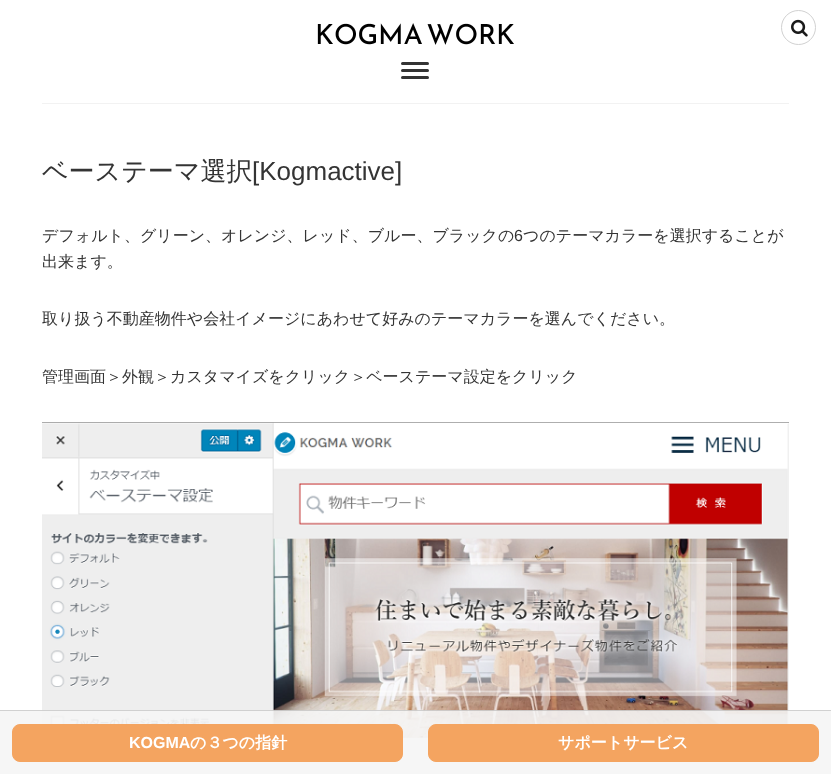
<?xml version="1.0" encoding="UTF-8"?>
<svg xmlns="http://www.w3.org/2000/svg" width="831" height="774">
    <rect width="100%" height="100%" fill="#FFFFFF"/>
    <text x="42" y="180" font-family="WenQuanYi Zen Hei" font-size="26" font-weight="500" fill="#343434">ベーステーマ選択</text>
    <text x="252" y="180" font-family="Liberation Sans" font-size="26" fill="#343434">[Kogmactive]</text>
    <text x="42" y="241" font-family="WenQuanYi Zen Hei" font-size="16" font-weight="500" fill="#343434">デフォルト、グリーン、オレンジ、レッド、ブルー、ブラックの</text>
    <text x="514" y="241" font-family="Liberation Sans" font-size="16" fill="#343434">6</text>
    <text x="523" y="241" font-family="WenQuanYi Zen Hei" font-size="16" font-weight="500" fill="#343434">つのテーマカラーを選択することが</text>
    <text x="42" y="267" font-family="WenQuanYi Zen Hei" font-size="16" font-weight="500" fill="#343434">出来ます。</text>
    <text x="42" y="324" font-family="WenQuanYi Zen Hei" font-size="16" font-weight="500" fill="#343434">取り扱う不動産物件や会社イメージにあわせて好みのテーマカラーを選んでください。</text>
    <text x="42" y="382" font-family="WenQuanYi Zen Hei" font-size="16" font-weight="500" fill="#343434">管理画面＞外観＞カスタマイズをクリック＞ベーステーマ設定をクリック</text>
    <image x="42" y="422" width="747" height="332" href="img_01.png"/>
    <rect x="42" y="103" width="747" height="1" fill="#F2F2F2"/>
    <rect x="401" y="62" width="28" height="3" rx="1.5" fill="#333333"/>
    <rect x="401" y="69" width="28" height="3" rx="1.5" fill="#333333"/>
    <rect x="401" y="76" width="28" height="3" rx="1.5" fill="#333333"/>
    <circle cx="798.5" cy="27.5" r="17" fill="none" stroke="#D1D1D1"/>
    <image x="791" y="19" width="17" height="18" href="img_02.png"/>
    <image x="317" y="23" width="197" height="22" href="img_03.png"/>
    <rect x="0" y="710" width="831" height="64" fill="#F5F5F5" fill-opacity="0.9"/>
    <rect x="0" y="710" width="831" height="1" fill="#000000" fill-opacity="0.15"/>
    <rect x="12.5" y="724.5" width="390" height="37" rx="7.5" fill="#F4A460" stroke="#F4A460"/>
    <text x="129" y="748" font-family="Liberation Sans" font-size="16" font-weight="700" fill="#FFFFFF">KOGMA</text>
    <text x="190" y="748" font-family="WenQuanYi Zen Hei" font-size="16" font-weight="700" fill="#FFFFFF">の３つの指針</text>
    <rect x="428.5" y="724.5" width="390" height="37" rx="7.5" fill="#F4A460" stroke="#F4A460"/>
    <text x="558" y="748" font-family="WenQuanYi Zen Hei" font-size="16" font-weight="700" fill="#FFFFFF">サポートサービス</text>
</svg>
